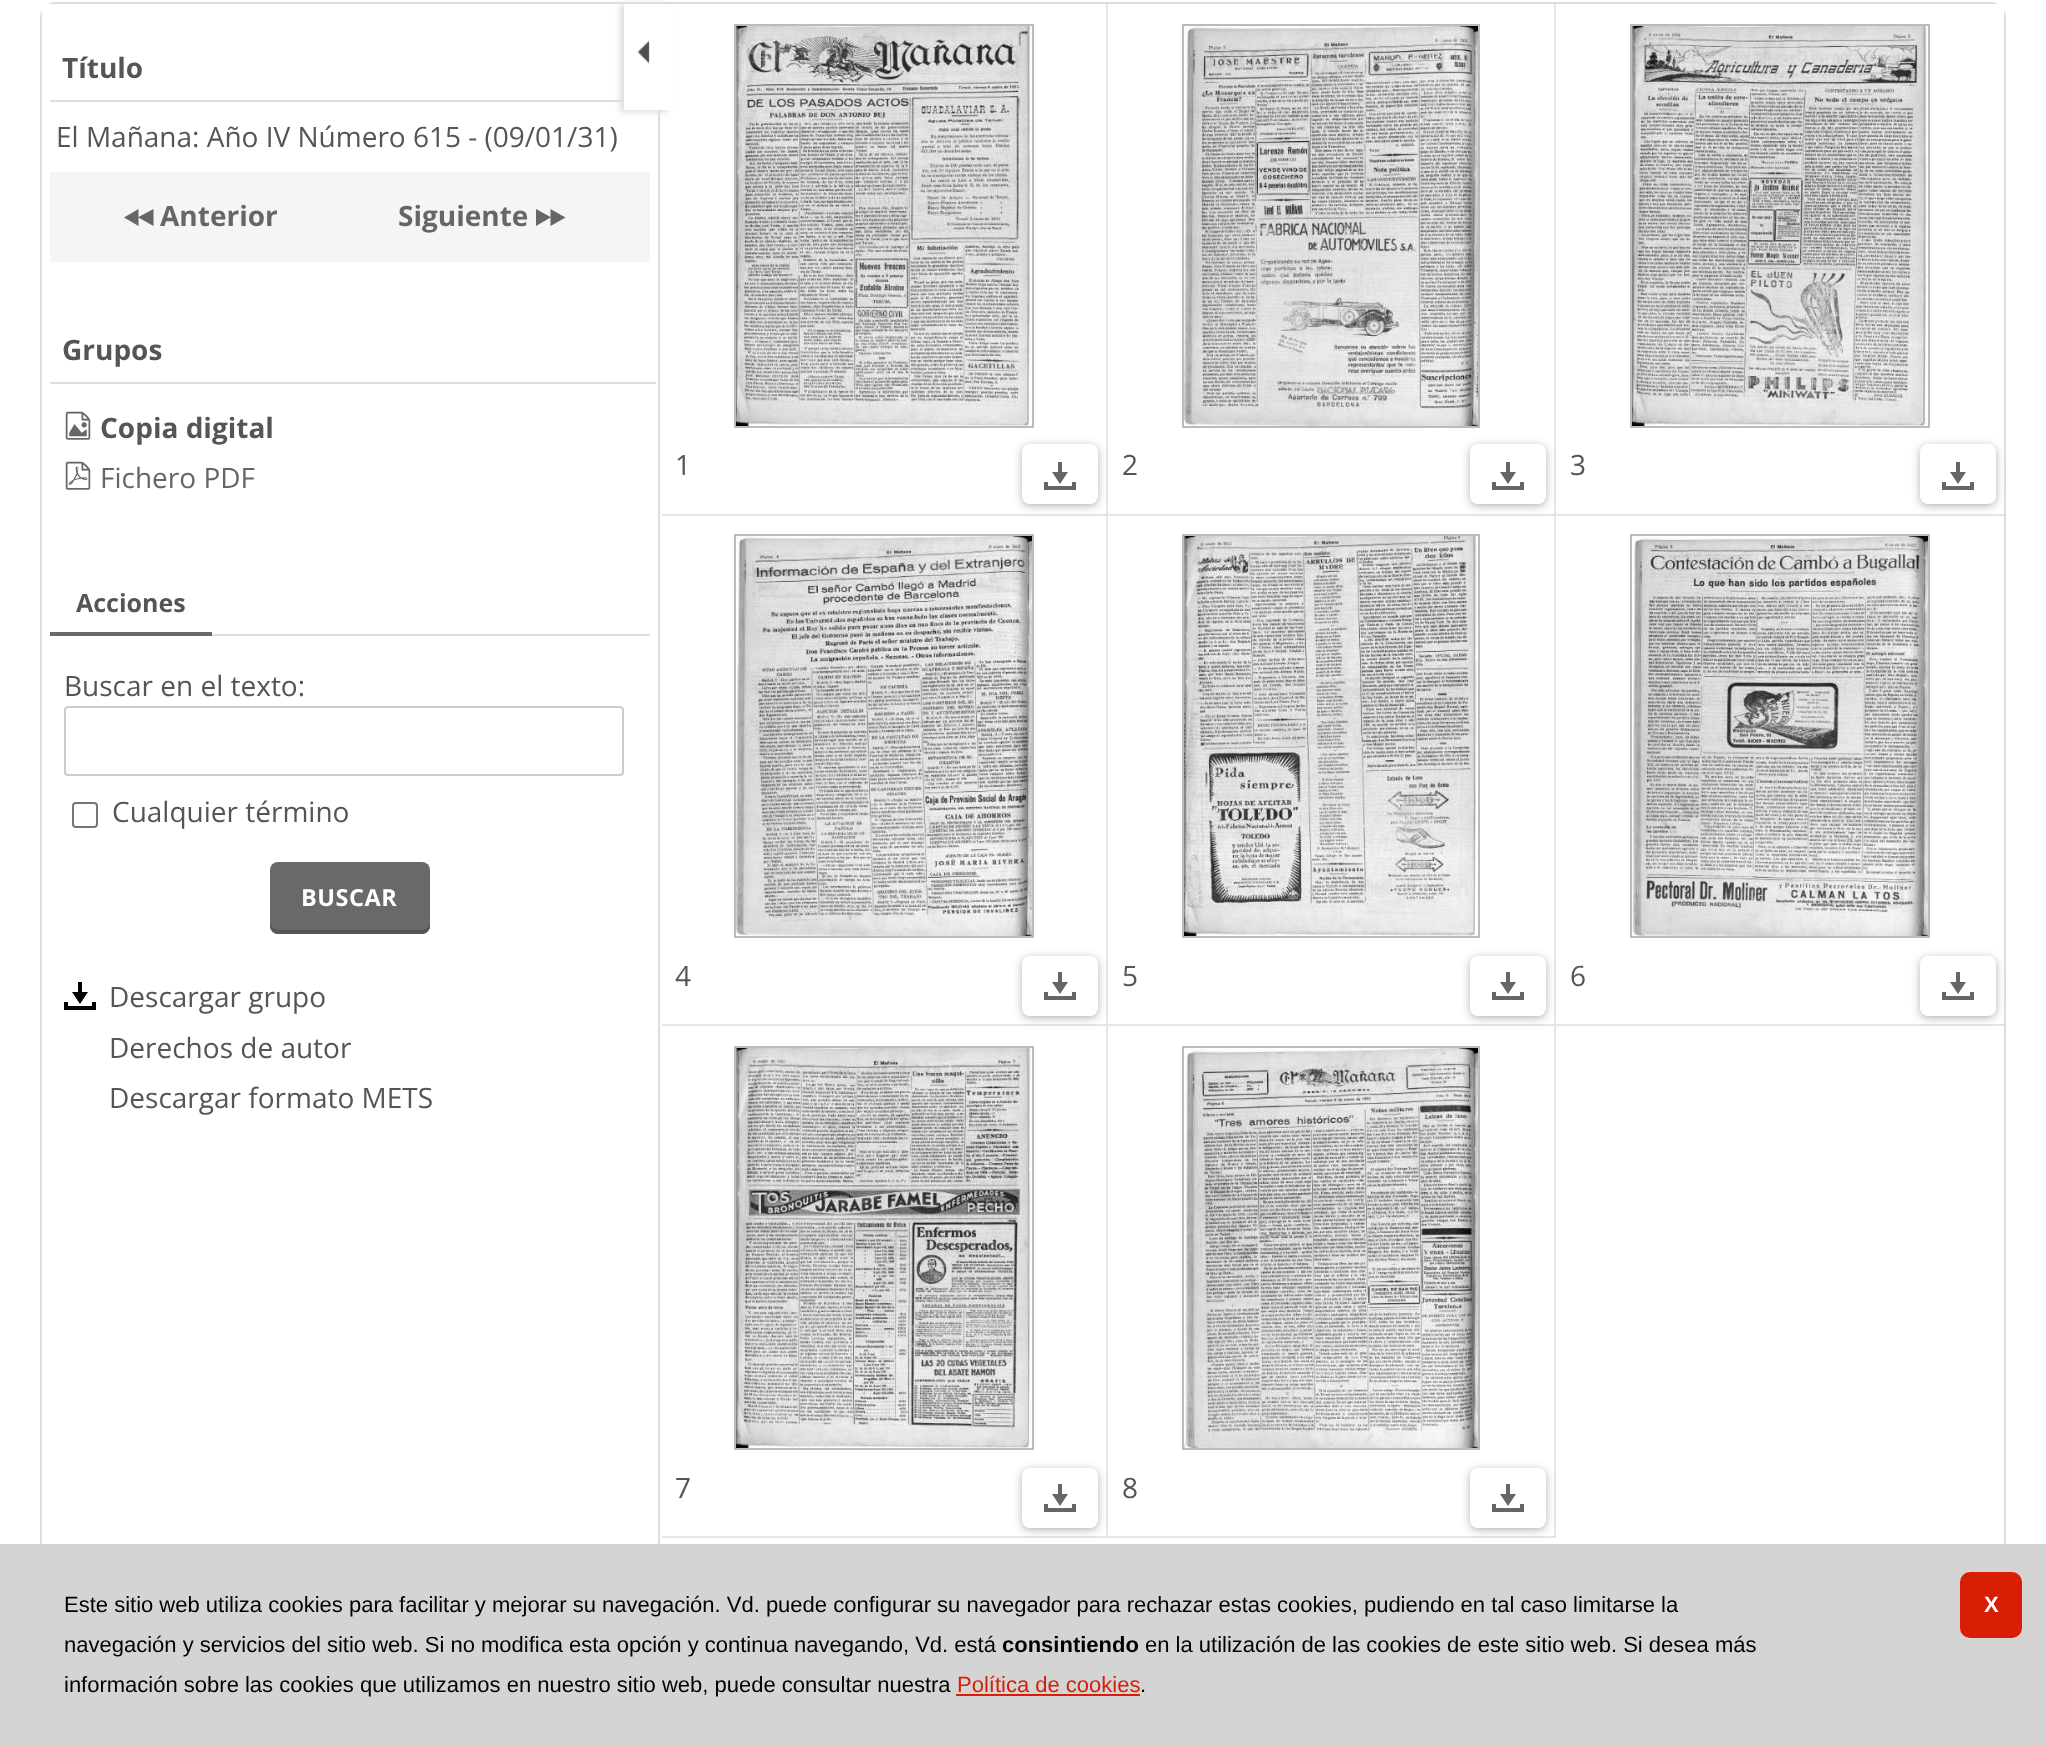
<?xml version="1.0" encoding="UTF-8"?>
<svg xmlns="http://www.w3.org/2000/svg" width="2046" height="1745">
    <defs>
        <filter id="blur1" x="-50%" y="-200%" width="200%" height="500%"><feGaussianBlur stdDeviation="4"/></filter>
        <filter id="blur2" x="-50%" y="-200%" width="200%" height="500%"><feGaussianBlur stdDeviation="3"/></filter>
    </defs>
    <rect width="100%" height="100%" fill="#FFFFFF"/>
    <rect x="41" y="3" width="1964" height="1702" rx="15" fill="none" stroke="#DDDDDD" stroke-width="2"/>
    <rect x="42" y="4" width="13" height="1700" fill="#FFFFFF"/>
    <rect x="658" y="110" width="2" height="1594" fill="#DDDDDD"/>
    <rect x="50" y="100" width="574" height="2" fill="#DDDDDD"/>
    <text x="62" y="78" font-family="Open Sans" font-size="28" font-weight="700" fill="#555555">Título</text>
    <text x="56" y="147" font-family="Open Sans" font-size="28" fill="#555555">El Mañana: Año IV Número 615 - (09/01/31)</text>
    <rect x="50" y="172" width="600" height="90" fill="#F5F5F5"/>
    <path d="M 138.5 209 V 217 L 153.5 209 V 226 L 138.5 217.5 V 226 L 124 217.5 Z" fill="#666666"/>
    <text x="160" y="226" font-family="Open Sans" font-size="28" font-weight="700" fill="#666666">Anterior</text>
    <text x="398" y="226" font-family="Open Sans" font-size="28" font-weight="700" fill="#666666">Siguiente</text>
    <path d="M 550.5 209 L 565.5 217.5 L 550.5 226 V 217.5 L 536 226 V 209 L 550.5 217 Z" fill="#666666"/>
    <rect x="50" y="382" width="606" height="2" fill="#DDDDDD"/>
    <text x="62" y="360" font-family="Open Sans" font-size="28" font-weight="700" fill="#555555">Grupos</text>
    <image x="65" y="411" width="26" height="29" href="img_01.png"/>
    <text x="100" y="438" font-family="Open Sans" font-size="28" font-weight="700" fill="#555555">Copia digital</text>
    <image x="65" y="461" width="26" height="29" href="img_02.png"/>
    <text x="100" y="488" font-family="Open Sans" font-size="28" fill="#666666">Fichero PDF</text>
    <rect x="212" y="634" width="438" height="2" fill="#DDDDDD"/>
    <rect x="50" y="632" width="162" height="4" fill="#696969"/>
    <text x="76" y="612" font-family="Open Sans" font-size="25" font-weight="700" fill="#555555">Acciones</text>
    <text x="64" y="696" font-family="Open Sans" font-size="28" fill="#555555">Buscar en el texto:</text>
    <rect x="65" y="707" width="558" height="68" rx="3" fill="none" stroke="#CCCCCC" stroke-width="2"/>
    <rect x="73" y="803" width="24" height="24" rx="3" fill="none" stroke="#767676" stroke-width="2"/>
    <text x="112" y="822" font-family="Open Sans" font-size="28" fill="#555555">Cualquier término</text>
    <rect x="270" y="862" width="160" height="72" rx="8" fill="#696969"/>
    <path d="M 270 922 V 926 C 270 930 274 934 278 934 H 422 C 426 934 430 930 430 926 V 922 C 430 926 426 930 422 930 H 278 C 274 930 270 926 270 922 Z" fill="#555555"/>
    <text x="301" y="906" font-family="Open Sans" font-size="23.5" font-weight="700" letter-spacing="0.5" fill="#FFFFFF">BUSCAR</text>
    <image x="64" y="982" width="32" height="28" href="img_03.png"/>
    <text font-family="Open Sans" font-size="28" fill="#555555">
        <tspan x="109" y="1007">Descargar grupo</tspan>
        <tspan x="109" y="1058">Derechos de autor</tspan>
        <tspan x="109" y="1108">Descargar formato METS</tspan>
    </text>
    <rect x="1106" y="4" width="2" height="512" fill="#E5E5E5"/>
    <rect x="660" y="514" width="448" height="2" fill="#E5E5E5"/>
    <rect x="1022" y="446" width="76" height="60" rx="8" fill="#000000" fill-opacity="0.3" filter="url(#blur1)"/>
    <rect x="1106" y="516" width="2" height="510" fill="#E5E5E5"/>
    <rect x="660" y="1024" width="448" height="2" fill="#E5E5E5"/>
    <rect x="1022" y="958" width="76" height="60" rx="8" fill="#000000" fill-opacity="0.3" filter="url(#blur1)"/>
    <rect x="1106" y="1026" width="2" height="512" fill="#E5E5E5"/>
    <rect x="660" y="1536" width="448" height="2" fill="#E5E5E5"/>
    <rect x="660" y="514" width="2" height="1024" fill="#FFFFFF"/>
    <rect x="620" y="4" width="48" height="108" fill="#DDDDDD" filter="url(#blur2)"/>
    <rect x="624" y="4" width="48" height="106" fill="#FFFFFF"/>
    <image x="637" y="40" width="13" height="24" href="img_04.png"/>
    <rect x="1991" y="4" width="13" height="1700" fill="#FFFFFF"/>
    <rect x="735" y="25" width="298" height="402" fill="none" stroke="#BBBBBB" stroke-width="2"/>
    <image x="736" y="26" width="296" height="400" href="img_05.png"/>
    <text x="675" y="475" font-family="Open Sans" font-size="28" fill="#555555">1</text>
    <rect x="1022" y="444" width="76" height="60" rx="8" fill="#FFFFFF"/>
    <image x="1044" y="462" width="32" height="28" href="img_06.png"/>
    <rect x="1554" y="4" width="2" height="512" fill="#E5E5E5"/>
    <rect x="1108" y="514" width="448" height="2" fill="#E5E5E5"/>
    <rect x="1183" y="25" width="296" height="402" fill="none" stroke="#BBBBBB" stroke-width="2"/>
    <image x="1184" y="26" width="294" height="400" href="img_07.png"/>
    <text x="1122" y="475" font-family="Open Sans" font-size="28" fill="#555555">2</text>
    <rect x="1470" y="446" width="76" height="60" rx="8" fill="#000000" fill-opacity="0.3" filter="url(#blur1)"/>
    <rect x="1470" y="444" width="76" height="60" rx="8" fill="#FFFFFF"/>
    <image x="1492" y="462" width="32" height="28" href="img_06.png"/>
    <rect x="1556" y="514" width="448" height="2" fill="#E5E5E5"/>
    <rect x="1631" y="25" width="298" height="402" fill="none" stroke="#BBBBBB" stroke-width="2"/>
    <image x="1632" y="26" width="295" height="400" href="img_08.png"/>
    <text x="1570" y="475" font-family="Open Sans" font-size="28" fill="#555555">3</text>
    <rect x="1920" y="446" width="76" height="60" rx="8" fill="#000000" fill-opacity="0.3" filter="url(#blur1)"/>
    <rect x="1920" y="444" width="76" height="60" rx="8" fill="#FFFFFF"/>
    <image x="1942" y="462" width="32" height="28" href="img_06.png"/>
    <rect x="735" y="535" width="298" height="402" fill="none" stroke="#BBBBBB" stroke-width="2"/>
    <image x="736" y="536" width="296" height="400" href="img_09.png"/>
    <text x="675" y="986" font-family="Open Sans" font-size="28" fill="#555555">4</text>
    <rect x="1022" y="956" width="76" height="60" rx="8" fill="#FFFFFF"/>
    <image x="1044" y="972" width="32" height="28" href="img_06.png"/>
    <rect x="1554" y="516" width="2" height="510" fill="#E5E5E5"/>
    <rect x="1108" y="1024" width="448" height="2" fill="#E5E5E5"/>
    <rect x="1183" y="535" width="296" height="402" fill="none" stroke="#BBBBBB" stroke-width="2"/>
    <image x="1184" y="536" width="293" height="400" href="img_10.png"/>
    <text x="1122" y="986" font-family="Open Sans" font-size="28" fill="#555555">5</text>
    <rect x="1470" y="958" width="76" height="60" rx="8" fill="#000000" fill-opacity="0.3" filter="url(#blur1)"/>
    <rect x="1470" y="956" width="76" height="60" rx="8" fill="#FFFFFF"/>
    <image x="1492" y="972" width="32" height="28" href="img_06.png"/>
    <rect x="1556" y="1024" width="448" height="2" fill="#E5E5E5"/>
    <rect x="1631" y="535" width="298" height="402" fill="none" stroke="#BBBBBB" stroke-width="2"/>
    <image x="1632" y="536" width="296" height="400" href="img_11.png"/>
    <text x="1570" y="986" font-family="Open Sans" font-size="28" fill="#555555">6</text>
    <rect x="1920" y="958" width="76" height="60" rx="8" fill="#000000" fill-opacity="0.3" filter="url(#blur1)"/>
    <rect x="1920" y="956" width="76" height="60" rx="8" fill="#FFFFFF"/>
    <image x="1942" y="972" width="32" height="28" href="img_06.png"/>
    <rect x="735" y="1047" width="298" height="402" fill="none" stroke="#BBBBBB" stroke-width="2"/>
    <image x="736" y="1048" width="295" height="400" href="img_12.png"/>
    <text x="675" y="1498" font-family="Open Sans" font-size="28" fill="#555555">7</text>
    <rect x="1022" y="1470" width="76" height="60" rx="8" fill="#000000" fill-opacity="0.3" filter="url(#blur1)"/>
    <rect x="1022" y="1468" width="76" height="60" rx="8" fill="#FFFFFF"/>
    <image x="1044" y="1484" width="32" height="28" href="img_06.png"/>
    <rect x="1554" y="1026" width="2" height="512" fill="#E5E5E5"/>
    <rect x="1108" y="1536" width="448" height="2" fill="#E5E5E5"/>
    <rect x="1183" y="1047" width="296" height="402" fill="none" stroke="#BBBBBB" stroke-width="2"/>
    <image x="1184" y="1048" width="294" height="400" href="img_13.png"/>
    <text x="1122" y="1498" font-family="Open Sans" font-size="28" fill="#555555">8</text>
    <rect x="1470" y="1470" width="76" height="60" rx="8" fill="#000000" fill-opacity="0.3" filter="url(#blur1)"/>
    <rect x="1470" y="1468" width="76" height="60" rx="8" fill="#FFFFFF"/>
    <image x="1492" y="1484" width="32" height="28" href="img_06.png"/>
    <rect x="0" y="1544" width="2046" height="201" fill="#D2D2D2" fill-opacity="0.95"/>
    <path d="M 0 1745 H 2046" fill="none" stroke="#CCCCCC" stroke-width="2" stroke-dasharray="2 2"/>
    <text font-family="Liberation Sans" font-size="22" fill="#000000">
        <tspan x="64" y="1612">Este sitio web utiliza cookies para facilitar y mejorar su navegación. Vd. puede configurar su navegador para rechazar estas cookies, pudiendo en tal caso limitarse la</tspan>
        <tspan x="64" y="1652">navegación y servicios del sitio web. Si no modifica esta opción y continua navegando, Vd. está</tspan>
    </text>
    <text x="1002" y="1652" font-family="Liberation Sans" font-size="22" font-weight="700" fill="#000000">consintiendo</text>
    <text x="1145" y="1652" font-family="Liberation Sans" font-size="22" fill="#000000">en la utilización de las cookies de este sitio web. Si desea más</text>
    <text x="64" y="1692" font-family="Liberation Sans" font-size="22" fill="#000000">información sobre las cookies que utilizamos en nuestro sitio web, puede consultar nuestra</text>
    <text x="957" y="1692" font-family="Liberation Sans" font-size="22" fill="#D81E05">Política de cookies</text>
    <text x="1140" y="1692" font-family="Liberation Sans" font-size="22" fill="#000000">.</text>
    <rect x="956" y="1694" width="184" height="2" fill="#D81E05"/>
    <rect x="1960" y="1572" width="62" height="66" rx="10" fill="#D81E05"/>
    <text x="1984" y="1612" font-family="Liberation Sans" font-size="22" font-weight="700" letter-spacing="-1" fill="#FFFFFF">X</text>
</svg>
